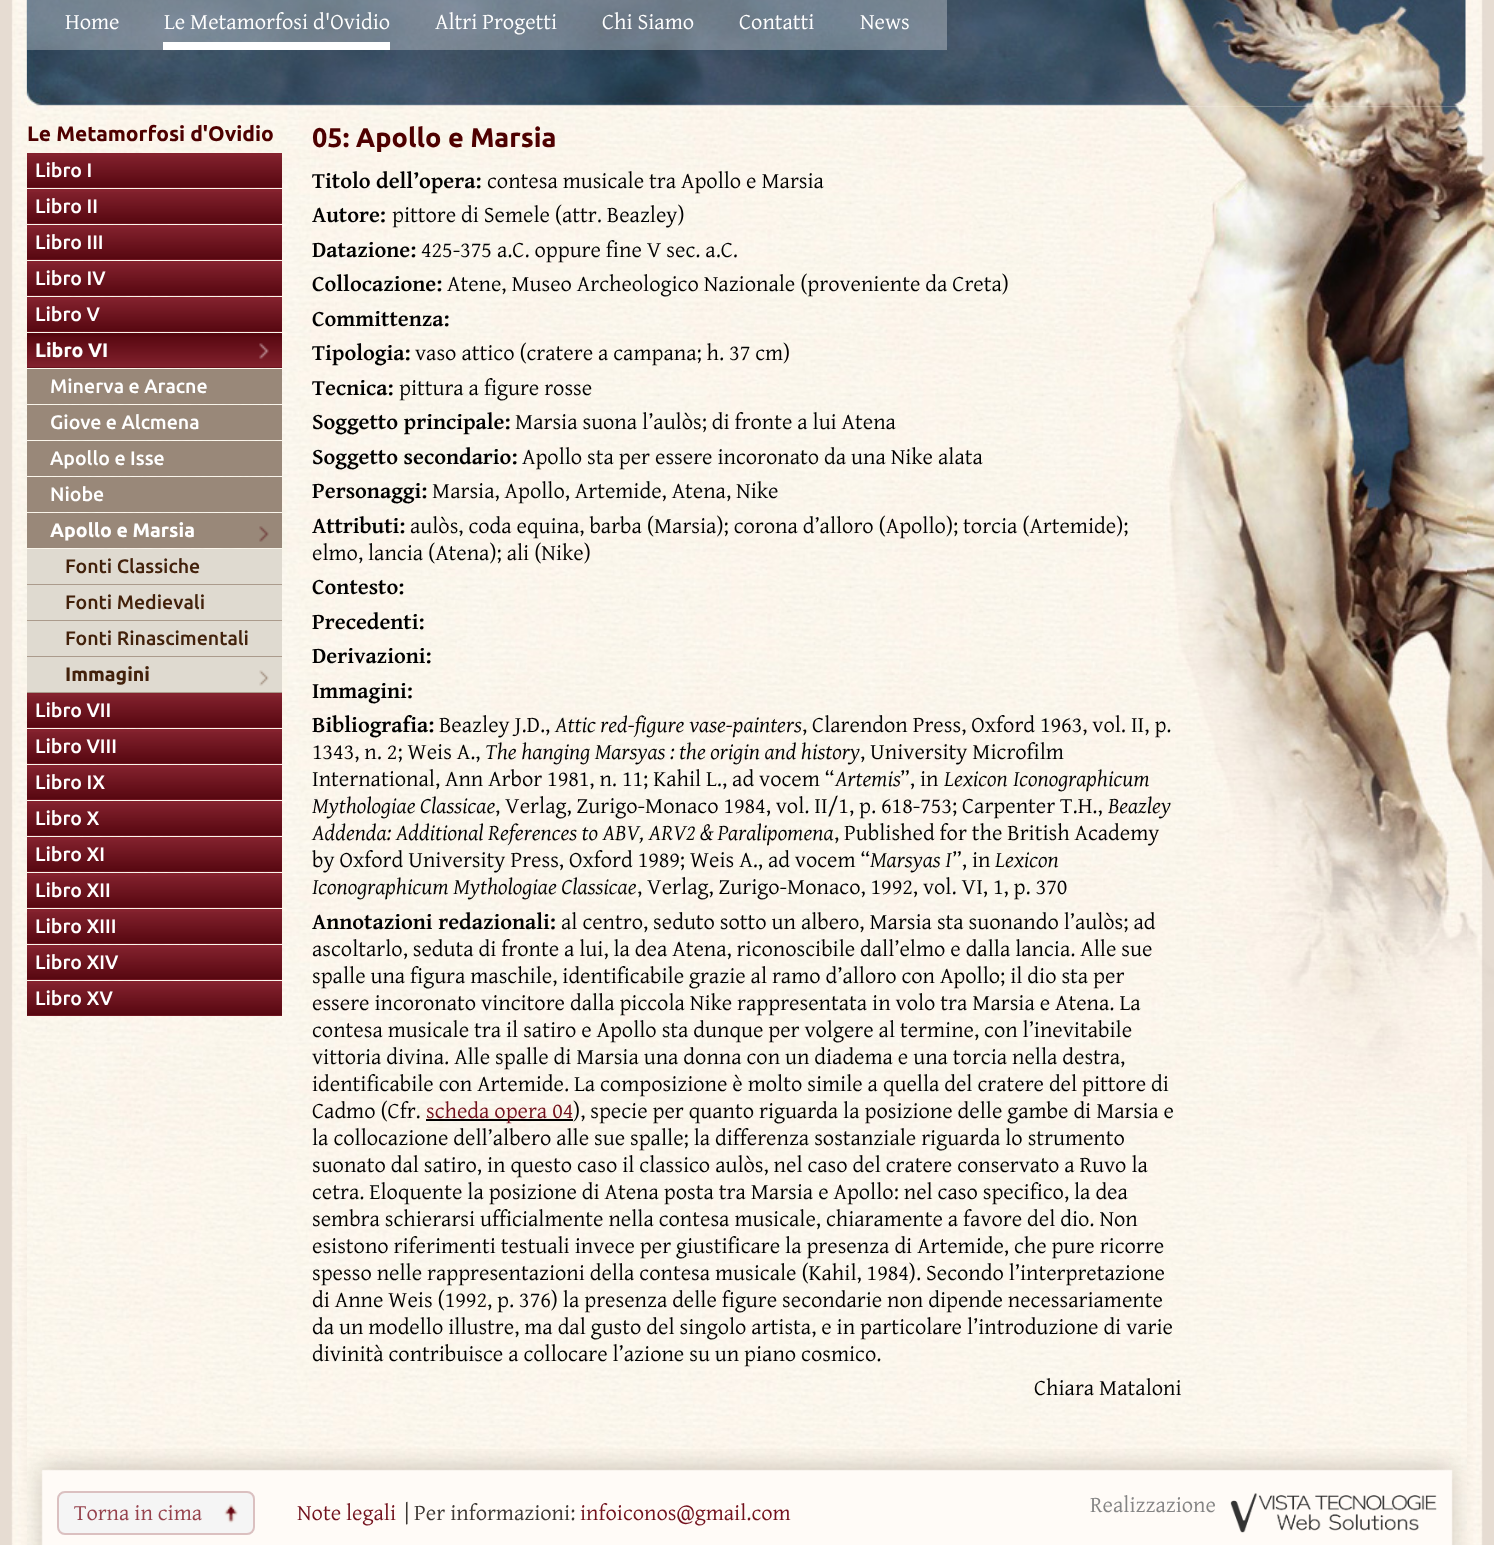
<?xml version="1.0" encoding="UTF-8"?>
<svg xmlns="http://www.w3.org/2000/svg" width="1494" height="1545">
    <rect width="100%" height="100%" fill="#E6DCD2"/>
    <image x="11" y="1134" width="1472" height="411" href="img_01.png"/>
    <image x="11" y="0" width="1483" height="1134" href="img_02.png"/>
    <image x="27" y="106" width="1440" height="1439" href="img_03.png"/>
    <image x="27" y="106" width="1440" height="1030" href="img_05.png"/>
    <image x="27" y="0" width="1440" height="107" href="img_04.png"/>
    <rect x="27" y="0" width="920" height="50" fill="#FFFFFF" fill-opacity="0.3"/>
    <text x="65" y="29" font-family="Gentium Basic" font-size="22.5" fill="#FFFFFF">Home</text>
    <rect x="163" y="42" width="227" height="8" fill="#FFFFFF"/>
    <text x="164" y="29" font-family="Gentium Basic" font-size="22.5" fill="#FFFFFF">Le Metamorfosi d'Ovidio</text>
    <text x="435" y="29" font-family="Gentium Basic" font-size="22.5" fill="#FFFFFF">Altri Progetti</text>
    <text x="602" y="29" font-family="Gentium Basic" font-size="22.5" fill="#FFFFFF">Chi Siamo</text>
    <text x="739" y="29" font-family="Gentium Basic" font-size="22.5" fill="#FFFFFF">Contatti</text>
    <text x="860" y="29" font-family="Gentium Basic" font-size="22.5" fill="#FFFFFF">News</text>
    <text x="27" y="141" font-family="Ubuntu" font-size="21" font-weight="700" fill="#4E0000">Le Metamorfosi d'Ovidio</text>
    <rect x="27" y="153" width="255" height="35" fill="#85222E"/>
    <image x="27" y="156" width="255" height="32" href="img_06.png"/>
    <text x="35" y="177" font-family="Ubuntu" font-size="19.5" font-weight="500" fill="#FFFFFF">Libro I</text>
    <rect x="27" y="189" width="255" height="35" fill="#85222E"/>
    <image x="27" y="192" width="255" height="32" href="img_06.png"/>
    <text x="35" y="213" font-family="Ubuntu" font-size="19.5" font-weight="500" fill="#FFFFFF">Libro II</text>
    <rect x="27" y="225" width="255" height="35" fill="#85222E"/>
    <image x="27" y="228" width="255" height="32" href="img_06.png"/>
    <text x="35" y="249" font-family="Ubuntu" font-size="19.5" font-weight="500" fill="#FFFFFF">Libro III</text>
    <rect x="27" y="261" width="255" height="35" fill="#85222E"/>
    <image x="27" y="264" width="255" height="32" href="img_06.png"/>
    <text x="35" y="285" font-family="Ubuntu" font-size="19.5" font-weight="500" fill="#FFFFFF">Libro IV</text>
    <rect x="27" y="297" width="255" height="35" fill="#85222E"/>
    <image x="27" y="300" width="255" height="32" href="img_06.png"/>
    <text x="35" y="321" font-family="Ubuntu" font-size="19.5" font-weight="500" fill="#FFFFFF">Libro V</text>
    <rect x="27" y="333" width="255" height="35" fill="#54060F"/>
    <image x="27" y="336" width="255" height="32" href="img_07.png"/>
    <text x="35" y="357" font-family="Ubuntu" font-size="19.5" font-weight="700" fill="#FFFFFF">Libro VI</text>
    <rect x="27" y="369" width="255" height="35" fill="#998879"/>
    <text x="50" y="393" font-family="Ubuntu" font-size="19.5" font-weight="500" fill="#FFFFFF">Minerva e Aracne</text>
    <rect x="27" y="405" width="255" height="35" fill="#998879"/>
    <text x="50" y="429" font-family="Ubuntu" font-size="19.5" font-weight="500" fill="#FFFFFF">Giove e Alcmena</text>
    <rect x="27" y="441" width="255" height="35" fill="#998879"/>
    <text x="50" y="465" font-family="Ubuntu" font-size="19.5" font-weight="500" fill="#FFFFFF">Apollo e Isse</text>
    <rect x="27" y="477" width="255" height="35" fill="#998879"/>
    <text x="50" y="501" font-family="Ubuntu" font-size="19.5" font-weight="500" fill="#FFFFFF">Niobe</text>
    <rect x="27" y="513" width="255" height="35" fill="#998879"/>
    <image x="259" y="526" width="10" height="16" href="img_08.png"/>
    <text x="50" y="537" font-family="Ubuntu" font-size="19.5" font-weight="700" fill="#FFFFFF">Apollo e Marsia</text>
    <rect x="27" y="549" width="255" height="35" fill="#DFDAD0"/>
    <rect x="27" y="584" width="255" height="1" fill="#AB9B8C"/>
    <text x="65" y="573" font-family="Ubuntu" font-size="19.5" font-weight="500" fill="#42210B">Fonti Classiche</text>
    <rect x="27" y="585" width="255" height="35" fill="#DFDAD0"/>
    <rect x="27" y="620" width="255" height="1" fill="#AB9B8C"/>
    <text x="65" y="609" font-family="Ubuntu" font-size="19.5" font-weight="500" fill="#42210B">Fonti Medievali</text>
    <rect x="27" y="621" width="255" height="35" fill="#DFDAD0"/>
    <rect x="27" y="656" width="255" height="1" fill="#AB9B8C"/>
    <text x="65" y="645" font-family="Ubuntu" font-size="19.5" font-weight="500" fill="#42210B">Fonti Rinascimentali</text>
    <rect x="27" y="657" width="255" height="35" fill="#DFDAD0"/>
    <image x="259" y="670" width="10" height="16" href="img_09.png"/>
    <rect x="27" y="692" width="255" height="1" fill="#AB9B8C"/>
    <text x="65" y="681" font-family="Ubuntu" font-size="19.5" font-weight="700" fill="#42210B">Immagini</text>
    <rect x="27" y="693" width="255" height="35" fill="#85222E"/>
    <image x="27" y="696" width="255" height="32" href="img_06.png"/>
    <text x="35" y="717" font-family="Ubuntu" font-size="19.5" font-weight="500" fill="#FFFFFF">Libro VII</text>
    <rect x="27" y="729" width="255" height="35" fill="#85222E"/>
    <image x="27" y="732" width="255" height="32" href="img_06.png"/>
    <text x="35" y="753" font-family="Ubuntu" font-size="19.5" font-weight="500" fill="#FFFFFF">Libro VIII</text>
    <rect x="27" y="765" width="255" height="35" fill="#85222E"/>
    <image x="27" y="768" width="255" height="32" href="img_06.png"/>
    <text x="35" y="789" font-family="Ubuntu" font-size="19.5" font-weight="500" fill="#FFFFFF">Libro IX</text>
    <rect x="27" y="801" width="255" height="35" fill="#85222E"/>
    <image x="27" y="804" width="255" height="32" href="img_06.png"/>
    <text x="35" y="825" font-family="Ubuntu" font-size="19.5" font-weight="500" fill="#FFFFFF">Libro X</text>
    <rect x="27" y="837" width="255" height="35" fill="#85222E"/>
    <image x="27" y="840" width="255" height="32" href="img_06.png"/>
    <text x="35" y="861" font-family="Ubuntu" font-size="19.5" font-weight="500" fill="#FFFFFF">Libro XI</text>
    <rect x="27" y="873" width="255" height="35" fill="#85222E"/>
    <image x="27" y="876" width="255" height="32" href="img_06.png"/>
    <text x="35" y="897" font-family="Ubuntu" font-size="19.5" font-weight="500" fill="#FFFFFF">Libro XII</text>
    <rect x="27" y="909" width="255" height="35" fill="#85222E"/>
    <image x="27" y="912" width="255" height="32" href="img_06.png"/>
    <text x="35" y="933" font-family="Ubuntu" font-size="19.5" font-weight="500" fill="#FFFFFF">Libro XIII</text>
    <rect x="27" y="945" width="255" height="35" fill="#85222E"/>
    <image x="27" y="948" width="255" height="32" href="img_06.png"/>
    <text x="35" y="969" font-family="Ubuntu" font-size="19.5" font-weight="500" fill="#FFFFFF">Libro XIV</text>
    <rect x="27" y="981" width="255" height="35" fill="#85222E"/>
    <image x="27" y="984" width="255" height="32" href="img_06.png"/>
    <text x="35" y="1005" font-family="Ubuntu" font-size="19.5" font-weight="500" fill="#FFFFFF">Libro XV</text>
    <text x="312" y="147" font-family="Ubuntu" font-size="27" font-weight="700" fill="#4E0000">05: Apollo e Marsia</text>
    <text x="312" y="188" font-family="Gentium Basic" font-size="22.5" font-weight="700" fill="#000000">Titolo dell’opera:</text>
    <text x="487" y="188" font-family="Gentium Basic" font-size="22.5" fill="#000000">contesa musicale tra Apollo e Marsia</text>
    <text x="312" y="222" font-family="Gentium Basic" font-size="22.5" font-weight="700" fill="#000000">Autore:</text>
    <text x="392" y="222" font-family="Gentium Basic" font-size="22.5" fill="#000000">pittore di Semele (attr. Beazley)</text>
    <text x="312" y="257" font-family="Gentium Basic" font-size="22.5" font-weight="700" fill="#000000">Datazione:</text>
    <text x="421" y="257" font-family="Gentium Basic" font-size="22.5" fill="#000000">425-375 a.C. oppure fine V sec. a.C.</text>
    <text x="312" y="291" font-family="Gentium Basic" font-size="22.5" font-weight="700" fill="#000000">Collocazione:</text>
    <text x="447" y="291" font-family="Gentium Basic" font-size="22.5" fill="#000000">Atene, Museo Archeologico Nazionale (proveniente da Creta)</text>
    <text font-family="Gentium Basic" font-size="22.5" font-weight="700" fill="#000000">
        <tspan x="312" y="326">Committenza:</tspan>
        <tspan x="312" y="360">Tipologia:</tspan>
    </text>
    <text x="415" y="360" font-family="Gentium Basic" font-size="22.5" fill="#000000">vaso attico (cratere a campana; h. 37 cm)</text>
    <text x="312" y="395" font-family="Gentium Basic" font-size="22.5" font-weight="700" fill="#000000">Tecnica:</text>
    <text x="399" y="395" font-family="Gentium Basic" font-size="22.5" fill="#000000">pittura a figure rosse</text>
    <text x="312" y="429" font-family="Gentium Basic" font-size="22.5" font-weight="700" fill="#000000">Soggetto principale:</text>
    <text x="515" y="429" font-family="Gentium Basic" font-size="22.5" fill="#000000">Marsia suona l’aulòs; di fronte a lui Atena</text>
    <text x="312" y="464" font-family="Gentium Basic" font-size="22.5" font-weight="700" fill="#000000">Soggetto secondario:</text>
    <text x="522" y="464" font-family="Gentium Basic" font-size="22.5" fill="#000000">Apollo sta per essere incoronato da una Nike alata</text>
    <text x="312" y="498" font-family="Gentium Basic" font-size="22.5" font-weight="700" fill="#000000">Personaggi:</text>
    <text x="432" y="498" font-family="Gentium Basic" font-size="22.5" fill="#000000">Marsia, Apollo, Artemide, Atena, Nike</text>
    <text x="312" y="533" font-family="Gentium Basic" font-size="22.5" font-weight="700" fill="#000000">Attributi:</text>
    <text x="410" y="533" font-family="Gentium Basic" font-size="22.5" fill="#000000">aulòs, coda equina, barba (Marsia); corona d’alloro (Apollo); torcia (Artemide);</text>
    <text x="312" y="560" font-family="Gentium Basic" font-size="22.5" fill="#000000">elmo, lancia (Atena); ali (Nike)</text>
    <text font-family="Gentium Basic" font-size="22.5" font-weight="700" fill="#000000">
        <tspan x="312" y="594">Contesto:</tspan>
        <tspan x="312" y="629">Precedenti:</tspan>
        <tspan x="312" y="663">Derivazioni:</tspan>
        <tspan x="312" y="698">Immagini:</tspan>
        <tspan x="312" y="732">Bibliografia:</tspan>
    </text>
    <text x="439" y="732" font-family="Gentium Basic" font-size="22.5" fill="#000000">Beazley J.D.,</text>
    <text x="555" y="732" font-family="Gentium Basic" font-size="22.5" font-style="italic" fill="#000000">Attic red-figure vase-painters</text>
    <text x="802" y="732" font-family="Gentium Basic" font-size="22.5" fill="#000000">, Clarendon Press, Oxford 1963, vol. II, p.</text>
    <text x="312" y="759" font-family="Gentium Basic" font-size="22.5" fill="#000000">1343, n. 2; Weis A.,</text>
    <text x="485" y="759" font-family="Gentium Basic" font-size="22.5" font-style="italic" fill="#000000">The hanging Marsyas : the origin and history</text>
    <text x="860" y="759" font-family="Gentium Basic" font-size="22.5" fill="#000000">, University Microfilm</text>
    <text x="312" y="786" font-family="Gentium Basic" font-size="22.5" fill="#000000">International, Ann Arbor 1981, n. 11; Kahil L., ad vocem “</text>
    <text x="835" y="786" font-family="Gentium Basic" font-size="22.5" font-style="italic" fill="#000000">Artemis</text>
    <text x="900" y="786" font-family="Gentium Basic" font-size="22.5" fill="#000000">”, in</text>
    <text x="944" y="786" font-family="Gentium Basic" font-size="22.5" font-style="italic" fill="#000000">Lexicon</text>
    <text x="1013" y="786" font-family="Gentium Basic" font-size="22.5" font-style="italic" fill="#000000">Iconographicum</text>
    <text x="312" y="813" font-family="Gentium Basic" font-size="22.5" font-style="italic" fill="#000000">Mythologiae Classicae</text>
    <text x="495" y="813" font-family="Gentium Basic" font-size="22.5" fill="#000000">, Verlag, Zurigo-Monaco 1984, vol. II/1, p. 618-753; Carpenter T.H.,</text>
    <text x="1108" y="813" font-family="Gentium Basic" font-size="22.5" font-style="italic" fill="#000000">Beazley</text>
    <text x="312" y="840" font-family="Gentium Basic" font-size="22.5" font-style="italic" fill="#000000">Addenda: Additional References to ABV, ARV2 &amp; Paralipomena</text>
    <text x="834" y="840" font-family="Gentium Basic" font-size="22.5" fill="#000000">, Published for the British Academy</text>
    <text x="312" y="867" font-family="Gentium Basic" font-size="22.5" fill="#000000">by Oxford University Press, Oxford 1989; Weis A., ad vocem “</text>
    <text x="870" y="867" font-family="Gentium Basic" font-size="22.5" font-style="italic" fill="#000000">Marsyas I</text>
    <text x="952" y="867" font-family="Gentium Basic" font-size="22.5" fill="#000000">”, in</text>
    <text x="995" y="867" font-family="Gentium Basic" font-size="22.5" font-style="italic" fill="#000000">Lexicon</text>
    <text x="312" y="894" font-family="Gentium Basic" font-size="22.5" font-style="italic" fill="#000000">Iconographicum Mythologiae Classicae</text>
    <text x="637" y="894" font-family="Gentium Basic" font-size="22.5" fill="#000000">, Verlag, Zurigo-Monaco, 1992, vol. VI, 1, p. 370</text>
    <text x="312" y="929" font-family="Gentium Basic" font-size="22.5" font-weight="700" fill="#000000">Annotazioni redazionali:</text>
    <text x="561" y="929" font-family="Gentium Basic" font-size="22.5" fill="#000000">al centro, seduto sotto un albero, Marsia sta suonando l’aulòs; ad</text>
    <text font-family="Gentium Basic" font-size="22.5" fill="#000000">
        <tspan x="312" y="956">ascoltarlo, seduta di fronte a lui, la dea Atena, riconoscibile dall’elmo e dalla lancia. Alle sue</tspan>
        <tspan x="312" y="983">spalle una figura maschile, identificabile grazie al ramo d’alloro con Apollo; il dio sta per</tspan>
        <tspan x="312" y="1010">essere incoronato vincitore dalla piccola Nike rappresentata in volo tra Marsia e Atena. La</tspan>
        <tspan x="312" y="1037">contesa musicale tra il satiro e Apollo sta dunque per volgere al termine, con l’inevitabile</tspan>
        <tspan x="312" y="1064">vittoria divina. Alle spalle di Marsia una donna con un diadema e una torcia nella destra,</tspan>
        <tspan x="312" y="1091">identificabile con Artemide. La composizione è molto simile a quella del cratere del pittore di</tspan>
        <tspan x="312" y="1118">Cadmo (Cfr.</tspan>
    </text>
    <rect x="426" y="1119" width="147" height="2" fill="#000000"/>
    <text x="426" y="1118" font-family="Gentium Basic" font-size="22.5" fill="#72101C">scheda opera 04</text>
    <text x="573" y="1118" font-family="Gentium Basic" font-size="22.5" fill="#000000">), specie per quanto riguarda la posizione delle gambe di Marsia e</text>
    <text font-family="Gentium Basic" font-size="22.5" fill="#000000">
        <tspan x="312" y="1145">la collocazione dell’albero alle sue spalle; la differenza sostanziale riguarda lo strumento</tspan>
        <tspan x="312" y="1172">suonato dal satiro, in questo caso il classico aulòs, nel caso del cratere conservato a Ruvo la</tspan>
        <tspan x="312" y="1199">cetra. Eloquente la posizione di Atena posta tra Marsia e Apollo: nel caso specifico, la dea</tspan>
        <tspan x="312" y="1226">sembra schierarsi ufficialmente nella contesa musicale, chiaramente a favore del dio. Non</tspan>
        <tspan x="312" y="1253">esistono riferimenti testuali invece per giustificare la presenza di Artemide, che pure ricorre</tspan>
        <tspan x="312" y="1280">spesso nelle rappresentazioni della contesa musicale (Kahil, 1984). Secondo l’interpretazione</tspan>
        <tspan x="312" y="1307">di Anne Weis (1992, p. 376) la presenza delle figure secondarie non dipende necessariamente</tspan>
        <tspan x="312" y="1334">da un modello illustre, ma dal gusto del singolo artista, e in particolare l’introduzione di varie</tspan>
        <tspan x="312" y="1361">divinità contribuisce a collocare l’azione su un piano cosmico.</tspan>
    </text>
    <text x="1034" y="1395" font-family="Gentium Basic" font-size="22.5" fill="#000000">Chiara Mataloni</text>
    <image x="27" y="1449" width="1440" height="96" href="img_10.png"/>
    <rect x="57" y="1491" width="198" height="44" rx="8" fill="#F5F5F5"/>
    <image x="224" y="1504" width="14" height="19" href="img_11.png"/>
    <rect x="58" y="1492" width="196" height="42" rx="7" fill="none" stroke="#DBC0C0" stroke-width="2"/>
    <text x="74" y="1520" font-family="Gentium Basic" font-size="22.5" fill="#96424D">Torna in cima</text>
    <text x="297" y="1520" font-family="Gentium Basic" font-size="22.5" fill="#72101C">Note legali</text>
    <text x="404" y="1520" font-family="Gentium Basic" font-size="22.5" fill="#3C3834">| Per informazioni:</text>
    <text x="580" y="1520" font-family="Gentium Basic" font-size="22.5" fill="#72101C">infoiconos@gmail.com</text>
    <text x="1090" y="1512" font-family="Gentium Basic" font-size="22.5" fill="#848484">Realizzazione</text>
    <image x="1230" y="1493" width="207" height="40" href="img_12.png"/>
</svg>
